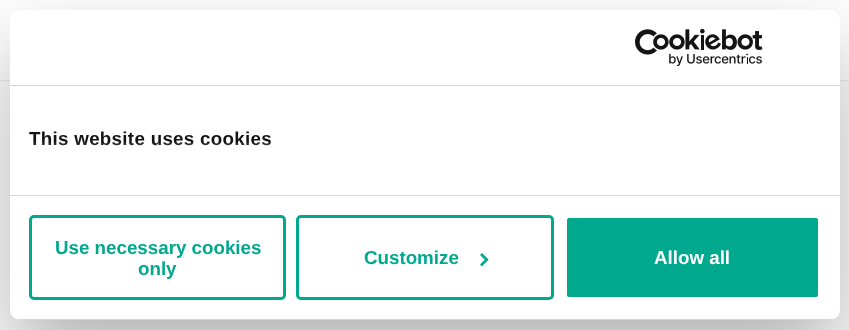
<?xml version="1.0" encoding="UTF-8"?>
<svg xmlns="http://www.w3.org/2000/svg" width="849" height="330">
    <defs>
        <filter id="blur1" x="-50%" y="-200%" width="200%" height="500%"><feGaussianBlur stdDeviation="1"/></filter>
        <filter id="blur2" x="-50%" y="-200%" width="200%" height="500%"><feGaussianBlur stdDeviation="42.5"/></filter>
        <linearGradient id="g1" gradientUnits="userSpaceOnUse" x1="417" y1="195" x2="417" y2="141"><stop offset="0" stop-color="#FFFFFF"/><stop offset="0.5" stop-color="#FFFFFF" stop-opacity="0.8"/><stop offset="1" stop-color="#FFFFFF" stop-opacity="0"/></linearGradient>
        <clipPath id="clip1"><rect x="10" y="10" width="830" height="310" rx="10"/></clipPath>
    </defs>
    <rect width="100%" height="100%" fill="#FFFFFF"/>
    <rect x="0" y="0" width="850" height="80" fill="#000000" fill-opacity="0.2" filter="url(#blur1)"/>
    <rect x="0" y="0" width="849" height="80" fill="#FFFFFF"/>
    <rect x="10" y="50" width="830" height="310" rx="10" fill="#000000" fill-opacity="0.3" filter="url(#blur2)"/>
    <rect x="10" y="10" width="830" height="310" rx="10" fill="#FFFFFF"/>
    <rect x="10" y="85" width="830" height="1" fill="#D6D6D6"/>
    <image x="635" y="29" width="128" height="37" href="img_01.png"/>
    <rect x="10" y="195" width="830" height="1" fill="#D6D6D6"/>
    <text x="29" y="145" font-family="Liberation Sans" font-size="18.75" font-weight="700" letter-spacing="0.3" fill="#141414">This website uses cookies</text>
    <rect x="33" y="142" width="238" height="4" fill="url(#g1)"/>
    <g clip-path="url(#clip1)">
        <rect x="10" y="319" width="830" height="1" fill="#D6D6D6"/>
    </g>
    <rect x="30.5" y="216.5" width="254" height="82" rx="3.5" fill="none" stroke="#00A88E" stroke-width="3"/>
    <text x="55" y="254" font-family="Liberation Sans" font-size="18.75" font-weight="700" fill="#00A88E">Use necessary cookies</text>
    <text x="138" y="275" font-family="Liberation Sans" font-size="18.75" font-weight="700" fill="#00A88E">only</text>
    <rect x="297.5" y="216.5" width="255" height="82" rx="3.5" fill="none" stroke="#00A88E" stroke-width="3"/>
    <text x="364" y="264" font-family="Liberation Sans" font-size="18.75" font-weight="700" fill="#00A88E">Customize</text>
    <path d="M 482 253 L 488.5 259.5 L 486.5 261.5 L 480 255 Z" fill="#00A88E"/>
    <path d="M 486.5 258 L 488.5 259.5 L 482 266.5 L 480 264.5 Z" fill="#00A88E"/>
    <rect x="565.5" y="216.5" width="254" height="82" rx="3.5" fill="#00A88E" stroke="#FFFFFF" stroke-width="3"/>
    <text x="654" y="264" font-family="Liberation Sans" font-size="18.75" font-weight="700" fill="#FFFFFF">Allow all</text>
</svg>
